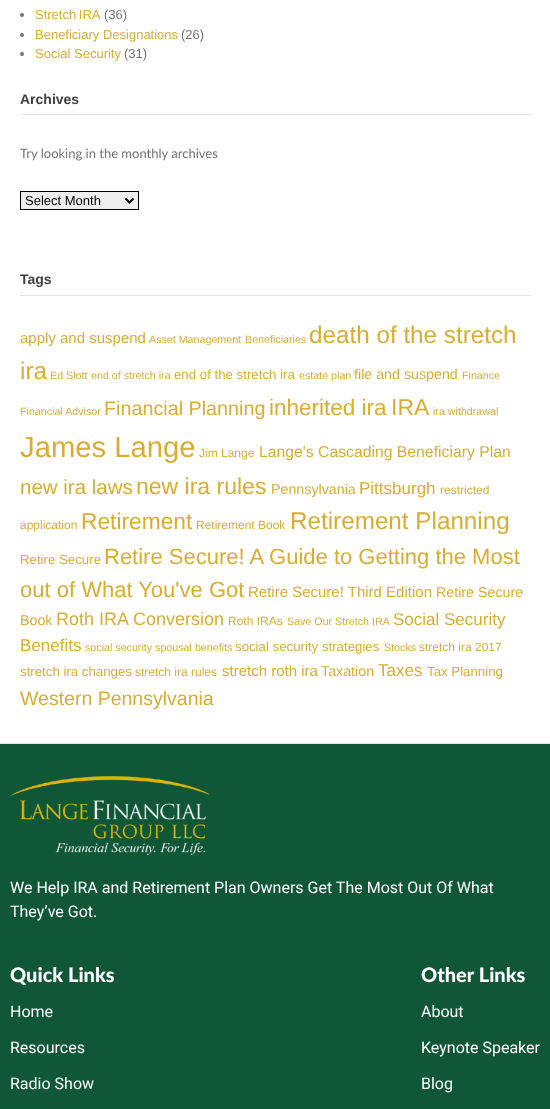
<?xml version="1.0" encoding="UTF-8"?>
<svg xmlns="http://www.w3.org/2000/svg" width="550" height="1109">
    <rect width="100%" height="100%" fill="#FFFFFF"/>
    <circle cx="22" cy="15" r="2" fill="#737373"/>
    <text x="35" y="19" word-spacing="-1" font-family="Liberation Sans" font-size="13" fill="#D9AD32">Stretch IRA</text>
    <text x="104" y="19" font-family="Liberation Sans" font-size="13" fill="#737373">(36)</text>
    <circle cx="22" cy="35" r="2" fill="#737373"/>
    <text x="35" y="39" font-family="Liberation Sans" font-size="13" fill="#D9AD32">Beneficiary Designations</text>
    <text x="181" y="39" font-family="Liberation Sans" font-size="13" fill="#737373">(26)</text>
    <circle cx="22" cy="54" r="2" fill="#737373"/>
    <text x="35" y="58" font-family="Liberation Sans" font-size="13" fill="#D9AD32">Social Security</text>
    <text x="124" y="58" font-family="Liberation Sans" font-size="13" fill="#737373">(31)</text>
    <rect x="20" y="114" width="511" height="1" fill="#E5E5E5"/>
    <text x="20" y="104" font-family="Liberation Sans" font-size="14" font-weight="700" fill="#404040">Archives</text>
    <text x="20" y="158" font-family="Lato" font-size="13" fill="#737373">Try looking in the monthly archives</text>
    <rect x="20.5" y="191.5" width="118" height="18" fill="#EFEFEF" stroke="#000000"/>
    <path d="M 125.5 198.5 L 129.5 202.5 L 133.5 198.5" fill="none" stroke="#000000" stroke-width="2"/>
    <text x="25" y="205" font-family="Liberation Sans" font-size="13" fill="#000000">Select Month</text>
    <rect x="20" y="295" width="511" height="1" fill="#E5E5E5"/>
    <text x="20" y="284" font-family="Liberation Sans" font-size="14" font-weight="700" fill="#404040">Tags</text>
    <text x="20" y="343" font-family="Liberation Sans" font-size="15" fill="#D9AD32">apply and suspend</text>
    <text x="149" y="343" font-family="Liberation Sans" font-size="10.7" fill="#D9AD32">Asset Management</text>
    <text x="245" y="343" font-family="Liberation Sans" font-size="10.7" fill="#D9AD32">Beneficiaries</text>
    <text x="309" y="343" font-family="Liberation Sans" font-size="24.25" fill="#D9AD32">death of the stretch</text>
    <text x="20" y="379" font-family="Liberation Sans" font-size="24.25" fill="#D9AD32">ira</text>
    <text x="50" y="379" font-family="Liberation Sans" font-size="10.7" fill="#D9AD32">Ed Slott</text>
    <text x="91" y="379" font-family="Liberation Sans" font-size="10.7" fill="#D9AD32">end of stretch ira</text>
    <text x="174" y="379" font-family="Liberation Sans" font-size="13.25" fill="#D9AD32">end of the stretch ira</text>
    <text x="299" y="379" font-family="Liberation Sans" font-size="10.7" fill="#D9AD32">estate plan</text>
    <text x="354" y="379" font-family="Liberation Sans" font-size="14.25" fill="#D9AD32">file and suspend</text>
    <text x="462" y="379" font-family="Liberation Sans" font-size="10.7" fill="#D9AD32">Finance</text>
    <text x="20" y="415" font-family="Liberation Sans" font-size="10.7" fill="#D9AD32">Financial Advisor</text>
    <text x="104" y="415" font-family="Liberation Sans" font-size="19.75" fill="#D9AD32">Financial Planning</text>
    <text x="269" y="415" font-family="Liberation Sans" font-size="22.5" fill="#D9AD32">inherited ira</text>
    <text x="391" y="415" font-family="Liberation Sans" font-size="23" fill="#D9AD32">IRA</text>
    <text x="433" y="415" font-family="Liberation Sans" font-size="10.7" fill="#D9AD32">ira withdrawal</text>
    <text x="20" y="457" font-family="Liberation Sans" font-size="29.25" fill="#D9AD32">James Lange</text>
    <text x="199" y="457" font-family="Liberation Sans" font-size="12" fill="#D9AD32">Jim Lange</text>
    <text x="259" y="457" font-family="Liberation Sans" font-size="15.75" fill="#D9AD32">Lange's Cascading Beneficiary Plan</text>
    <text x="20" y="494" font-family="Liberation Sans" font-size="20.5" fill="#D9AD32">new ira laws</text>
    <text x="136" y="494" font-family="Liberation Sans" font-size="23" fill="#D9AD32">new ira rules</text>
    <text x="271" y="494" font-family="Liberation Sans" font-size="14.25" fill="#D9AD32">Pennsylvania</text>
    <text x="359" y="494" font-family="Liberation Sans" font-size="17" fill="#D9AD32">Pittsburgh</text>
    <text x="440" y="494" font-family="Liberation Sans" font-size="12" fill="#D9AD32">restricted</text>
    <text x="20" y="529" font-family="Liberation Sans" font-size="12" fill="#D9AD32">application</text>
    <text x="81" y="529" font-family="Liberation Sans" font-size="22.75" fill="#D9AD32">Retirement</text>
    <text x="196" y="529" font-family="Liberation Sans" font-size="12" fill="#D9AD32">Retirement Book</text>
    <text x="290" y="529" font-family="Liberation Sans" font-size="24.25" fill="#D9AD32">Retirement Planning</text>
    <text x="20" y="564" font-family="Liberation Sans" font-size="13.25" fill="#D9AD32">Retire Secure</text>
    <text x="104" y="564" font-family="Liberation Sans" font-size="22" fill="#D9AD32">Retire Secure! A Guide to Getting the Most</text>
    <text x="20" y="597" font-family="Liberation Sans" font-size="22" fill="#D9AD32">out of What You've Got</text>
    <text x="248" y="597" font-family="Liberation Sans" font-size="15" fill="#D9AD32">Retire Secure! Third Edition</text>
    <text x="436" y="597" font-family="Liberation Sans" font-size="14.25" fill="#D9AD32">Retire Secure</text>
    <text x="20" y="625" font-family="Liberation Sans" font-size="14.25" fill="#D9AD32">Book</text>
    <text x="56" y="625" font-family="Liberation Sans" font-size="18" fill="#D9AD32">Roth IRA Conversion</text>
    <text x="228" y="625" font-family="Liberation Sans" font-size="12" fill="#D9AD32">Roth IRAs</text>
    <text x="287" y="625" font-family="Liberation Sans" font-size="10.7" fill="#D9AD32">Save Our Stretch IRA</text>
    <text x="393" y="625" font-family="Liberation Sans" font-size="17" fill="#D9AD32">Social Security</text>
    <text x="20" y="651" font-family="Liberation Sans" font-size="17" fill="#D9AD32">Benefits</text>
    <text x="85" y="651" font-family="Liberation Sans" font-size="10.7" fill="#D9AD32">social security spousal benefits</text>
    <text x="235" y="651" font-family="Liberation Sans" font-size="13.25" fill="#D9AD32">social security strategies</text>
    <text x="384" y="651" font-family="Liberation Sans" font-size="10.7" fill="#D9AD32">Stocks</text>
    <text x="419" y="651" font-family="Liberation Sans" font-size="12" fill="#D9AD32">stretch ira 2017</text>
    <text x="20" y="676" font-family="Liberation Sans" font-size="13.25" fill="#D9AD32">stretch ira changes</text>
    <text x="135" y="676" font-family="Liberation Sans" font-size="12" fill="#D9AD32">stretch ira rules</text>
    <text x="222" y="676" font-family="Liberation Sans" font-size="15" fill="#D9AD32">stretch roth ira</text>
    <text x="321" y="676" font-family="Liberation Sans" font-size="14.25" fill="#D9AD32">Taxation</text>
    <text x="378" y="676" font-family="Liberation Sans" font-size="17" fill="#D9AD32">Taxes</text>
    <text x="427" y="676" font-family="Liberation Sans" font-size="13.25" fill="#D9AD32">Tax Planning</text>
    <text x="20" y="705" font-family="Liberation Sans" font-size="19.5" fill="#D9AD32">Western Pennsylvania</text>
    <rect x="0" y="744" width="550" height="365" fill="#105737"/>
    <rect x="0" y="743" width="550" height="1" fill="#E5E5E5"/>
    <image x="10" y="776" width="200" height="80" href="img_01.png"/>
    <text font-family="Roboto" font-size="16" fill="#FFFFFF">
        <tspan x="10" y="893">We Help IRA and Retirement Plan Owners Get The Most Out Of What</tspan>
        <tspan x="10" y="917">They’ve Got.</tspan>
    </text>
    <text x="10" y="982" font-family="Lato" font-size="20" font-weight="900" fill="#FFFFFF">Quick Links</text>
    <text x="10" y="1017" font-family="Roboto" font-size="16" fill="#FFFFFF">Home</text>
    <text x="10" y="1053" font-family="Roboto" font-size="16" fill="#FFFFFF">Resources</text>
    <text x="10" y="1089" font-family="Roboto" font-size="16" fill="#FFFFFF">Radio Show</text>
    <text x="421" y="982" font-family="Lato" font-size="20" font-weight="900" fill="#FFFFFF">Other Links</text>
    <text x="421" y="1017" font-family="Roboto" font-size="16" fill="#FFFFFF">About</text>
    <text x="421" y="1053" font-family="Roboto" font-size="16" fill="#FFFFFF">Keynote Speaker</text>
    <text x="421" y="1089" font-family="Roboto" font-size="16" fill="#FFFFFF">Blog</text>
</svg>
